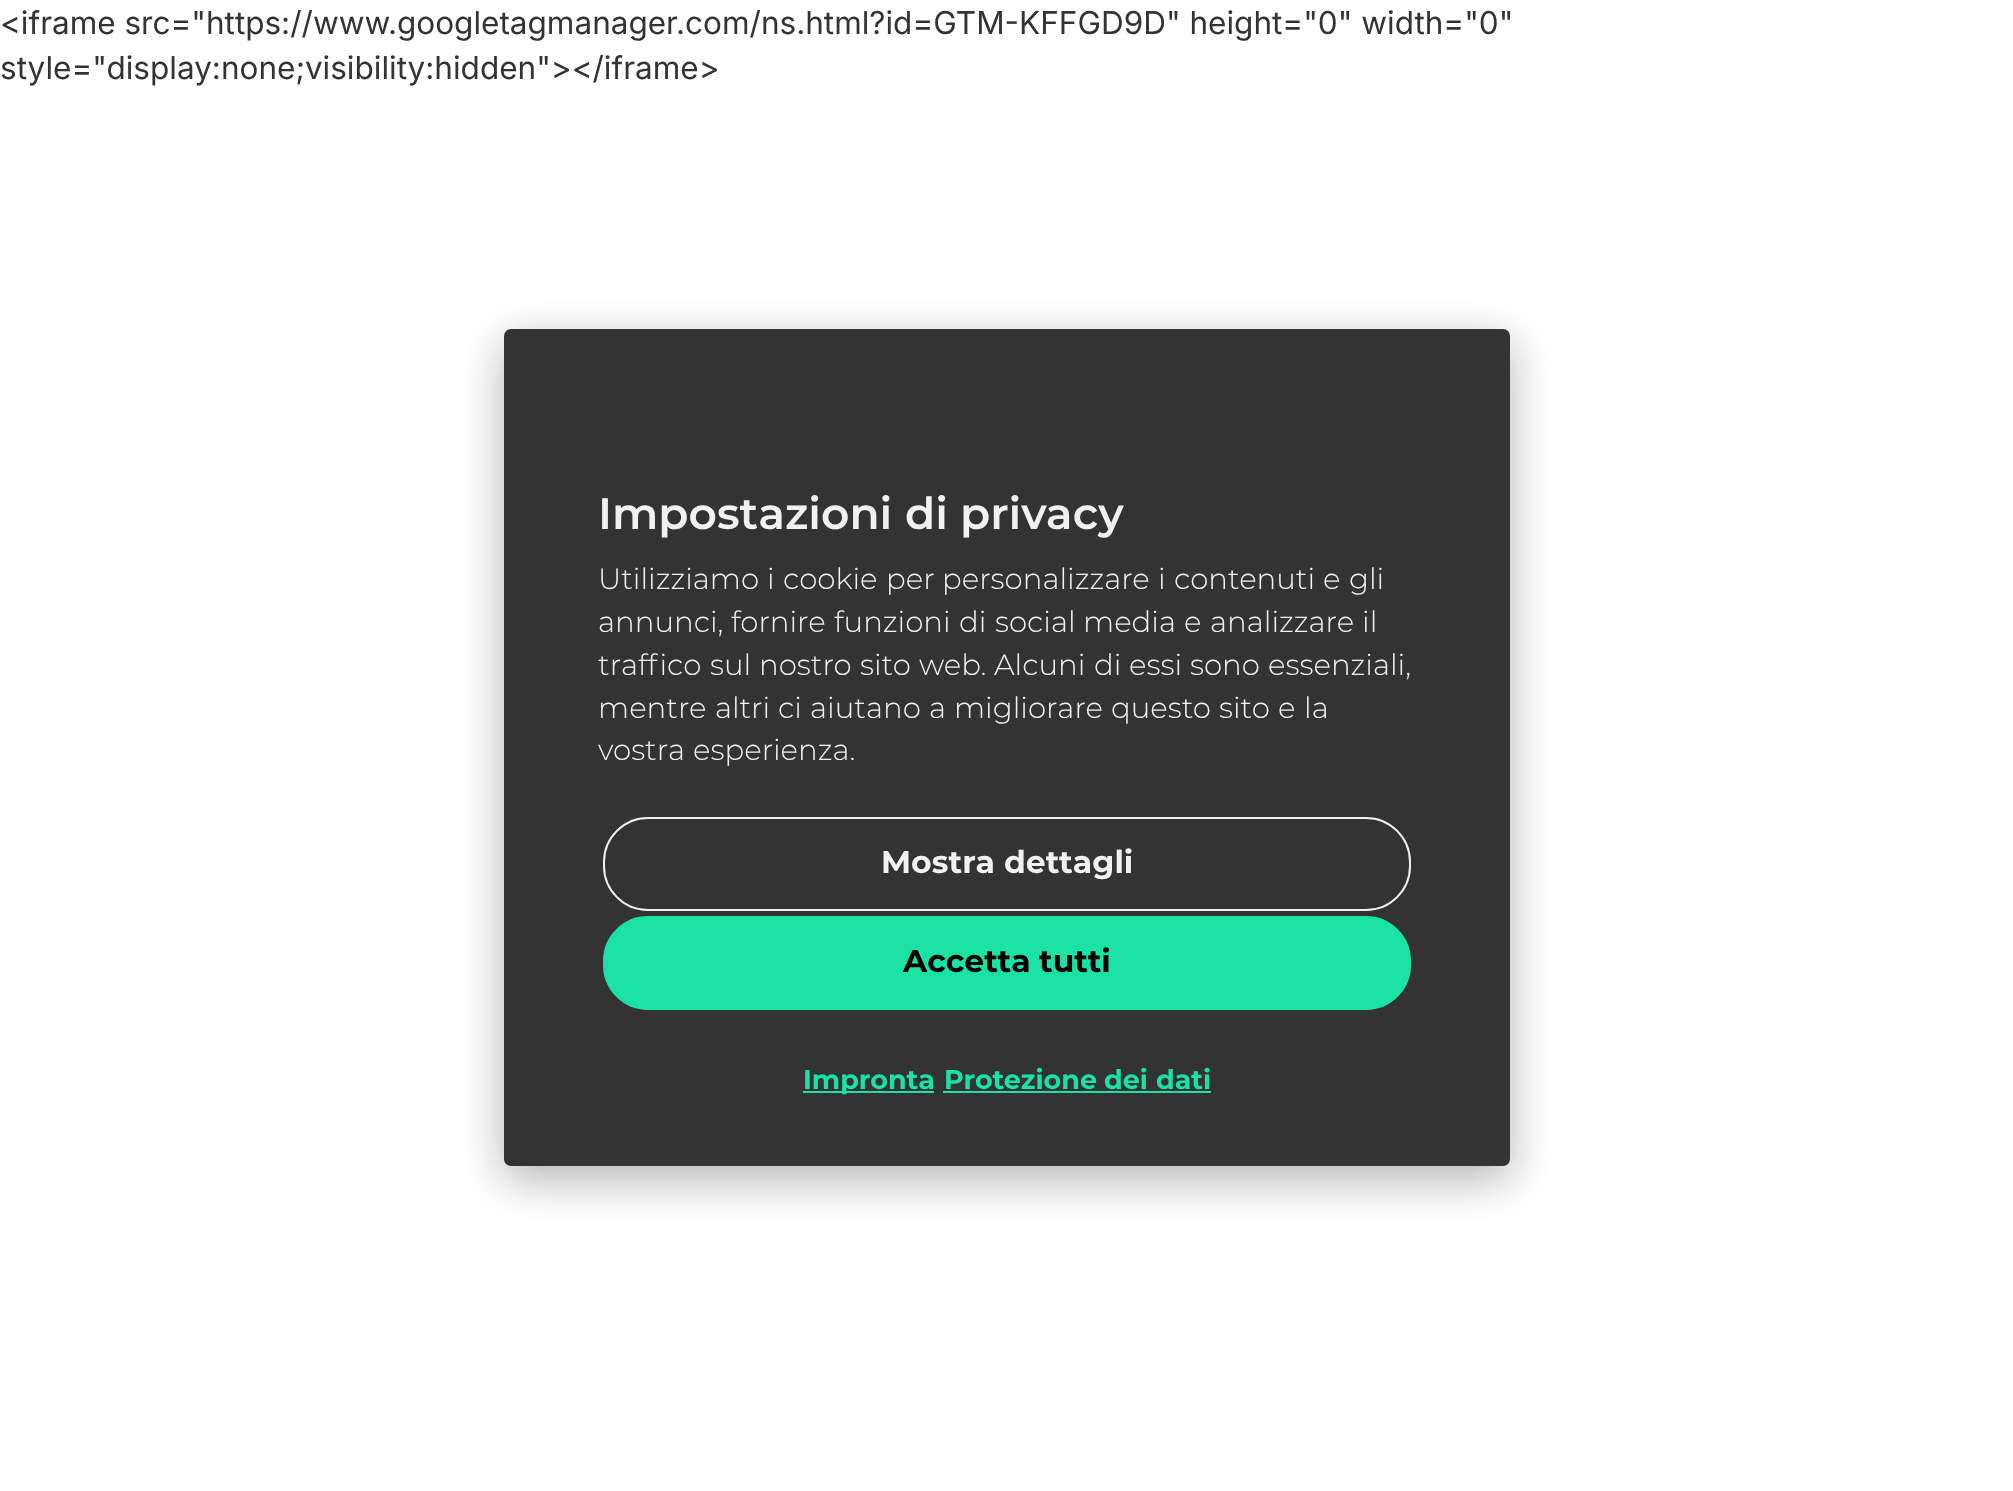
<?xml version="1.0" encoding="UTF-8"?>
<svg xmlns="http://www.w3.org/2000/svg" width="2013" height="1491">
    <defs>
        <filter id="blur1" x="-50%" y="-200%" width="200%" height="500%"><feGaussianBlur stdDeviation="22.5"/></filter>
    </defs>
    <rect width="100%" height="100%" fill="#FFFFFF"/>
    <image x="1" y="10" width="1510" height="76" href="img_01.png"/>
    <rect x="504" y="342" width="1006" height="837" rx="7" fill="#000000" fill-opacity="0.3" filter="url(#blur1)"/>
    <rect x="504" y="329" width="1006" height="837" rx="7" fill="#333333"/>
    <text x="598" y="529" font-family="Montserrat" font-size="44" font-weight="600" fill="#F3F0F0">Impostazioni</text>
    <text x="905" y="529" font-family="Montserrat" font-size="44" font-weight="600" fill="#F3F0F0">di</text>
    <text x="960" y="529" font-family="Montserrat" font-size="44" font-weight="600" fill="#F3F0F0">privacy</text>
    <text x="598" y="589" font-family="Montserrat" font-size="29.25" font-weight="300" fill="#F3F0F0">Utilizziamo</text>
    <text x="767" y="589" font-family="Montserrat" font-size="29.25" font-weight="300" fill="#F3F0F0">i</text>
    <text x="783" y="589" font-family="Montserrat" font-size="29.25" font-weight="300" fill="#F3F0F0">cookie</text>
    <text x="886" y="589" font-family="Montserrat" font-size="29.25" font-weight="300" fill="#F3F0F0">per</text>
    <text x="942" y="589" font-family="Montserrat" font-size="29.25" font-weight="300" fill="#F3F0F0">personalizzare</text>
    <text x="1158" y="589" font-family="Montserrat" font-size="29.25" font-weight="300" fill="#F3F0F0">i</text>
    <text x="1174" y="589" font-family="Montserrat" font-size="29.25" font-weight="300" fill="#F3F0F0">contenuti</text>
    <text x="1323" y="589" font-family="Montserrat" font-size="29.25" font-weight="300" fill="#F3F0F0">e</text>
    <text x="1349" y="589" font-family="Montserrat" font-size="29.25" font-weight="300" fill="#F3F0F0">gli</text>
    <text x="598" y="632" font-family="Montserrat" font-size="29.25" font-weight="300" fill="#F3F0F0">annunci,</text>
    <text x="731" y="632" font-family="Montserrat" font-size="29.25" font-weight="300" fill="#F3F0F0">fornire</text>
    <text x="834" y="632" font-family="Montserrat" font-size="29.25" font-weight="300" fill="#F3F0F0">funzioni</text>
    <text x="959" y="632" font-family="Montserrat" font-size="29.25" font-weight="300" fill="#F3F0F0">di</text>
    <text x="995" y="632" font-family="Montserrat" font-size="29.25" font-weight="300" fill="#F3F0F0">social</text>
    <text x="1083" y="632" font-family="Montserrat" font-size="29.25" font-weight="300" fill="#F3F0F0">media</text>
    <text x="1184" y="632" font-family="Montserrat" font-size="29.25" font-weight="300" fill="#F3F0F0">e</text>
    <text x="1210" y="632" font-family="Montserrat" font-size="29.25" font-weight="300" fill="#F3F0F0">analizzare</text>
    <text x="1362" y="632" font-family="Montserrat" font-size="29.25" font-weight="300" fill="#F3F0F0">il</text>
    <text x="598" y="675" font-family="Montserrat" font-size="29.25" font-weight="300" fill="#F3F0F0">traffico</text>
    <text x="710" y="675" font-family="Montserrat" font-size="29.25" font-weight="300" fill="#F3F0F0">sul</text>
    <text x="759" y="675" font-family="Montserrat" font-size="29.25" font-weight="300" fill="#F3F0F0">nostro</text>
    <text x="860" y="675" font-family="Montserrat" font-size="29.25" font-weight="300" fill="#F3F0F0">sito</text>
    <text x="919" y="675" font-family="Montserrat" font-size="29.25" font-weight="300" fill="#F3F0F0">web.</text>
    <text x="994" y="675" font-family="Montserrat" font-size="29.25" font-weight="300" fill="#F3F0F0">Alcuni</text>
    <text x="1094" y="675" font-family="Montserrat" font-size="29.25" font-weight="300" fill="#F3F0F0">di</text>
    <text x="1129" y="675" font-family="Montserrat" font-size="29.25" font-weight="300" fill="#F3F0F0">essi</text>
    <text x="1190" y="675" font-family="Montserrat" font-size="29.25" font-weight="300" fill="#F3F0F0">sono</text>
    <text x="1268" y="675" font-family="Montserrat" font-size="29.25" font-weight="300" fill="#F3F0F0">essenziali,</text>
    <text x="598" y="718" font-family="Montserrat" font-size="29.25" font-weight="300" fill="#F3F0F0">mentre</text>
    <text x="715" y="718" font-family="Montserrat" font-size="29.25" font-weight="300" fill="#F3F0F0">altri</text>
    <text x="778" y="718" font-family="Montserrat" font-size="29.25" font-weight="300" fill="#F3F0F0">ci</text>
    <text x="810" y="718" font-family="Montserrat" font-size="29.25" font-weight="300" fill="#F3F0F0">aiutano</text>
    <text x="929" y="718" font-family="Montserrat" font-size="29.25" font-weight="300" fill="#F3F0F0">a</text>
    <text x="954" y="718" font-family="Montserrat" font-size="29.25" font-weight="300" fill="#F3F0F0">migliorare</text>
    <text x="1111" y="718" font-family="Montserrat" font-size="29.25" font-weight="300" fill="#F3F0F0">questo</text>
    <text x="1219" y="718" font-family="Montserrat" font-size="29.25" font-weight="300" fill="#F3F0F0">sito</text>
    <text x="1278" y="718" font-family="Montserrat" font-size="29.25" font-weight="300" fill="#F3F0F0">e</text>
    <text x="1304" y="718" font-family="Montserrat" font-size="29.25" font-weight="300" fill="#F3F0F0">la</text>
    <text x="598" y="760" font-family="Montserrat" font-size="29.25" font-weight="300" fill="#F3F0F0">vostra</text>
    <text x="693" y="760" font-family="Montserrat" font-size="29.25" font-weight="300" fill="#F3F0F0">esperienza.</text>
    <rect x="604" y="818" width="806" height="92" rx="44" fill="none" stroke="#F3F0F0" stroke-width="2"/>
    <text x="881" y="873" font-family="Montserrat" font-size="31.5" font-weight="700" fill="#F3F0F0">Mostra</text>
    <text x="1004" y="873" font-family="Montserrat" font-size="31.5" font-weight="700" fill="#F3F0F0">dettagli</text>
    <rect x="604" y="917" width="806" height="92" rx="44" fill="#1AE2A5" stroke="#1AE2A5" stroke-width="2"/>
    <text x="903" y="972" font-family="Montserrat" font-size="31.5" font-weight="700" fill="#000000">Accetta</text>
    <text x="1039" y="972" font-family="Montserrat" font-size="31.5" font-weight="700" fill="#000000">tutti</text>
    <rect x="803" y="1091" width="131" height="2" fill="#1AE2A5"/>
    <text x="803" y="1089" font-family="Montserrat" font-size="27" font-weight="700" fill="#1AE2A5">Impronta</text>
    <text x="944" y="1089" font-family="Montserrat" font-size="27" font-weight="700" fill="#1AE2A5">Protezione</text>
    <rect x="943" y="1091" width="268" height="2" fill="#1AE2A5"/>
    <text x="1104" y="1089" font-family="Montserrat" font-size="27" font-weight="700" fill="#1AE2A5">dei</text>
    <text x="1156" y="1089" font-family="Montserrat" font-size="27" font-weight="700" fill="#1AE2A5">dati</text>
</svg>
